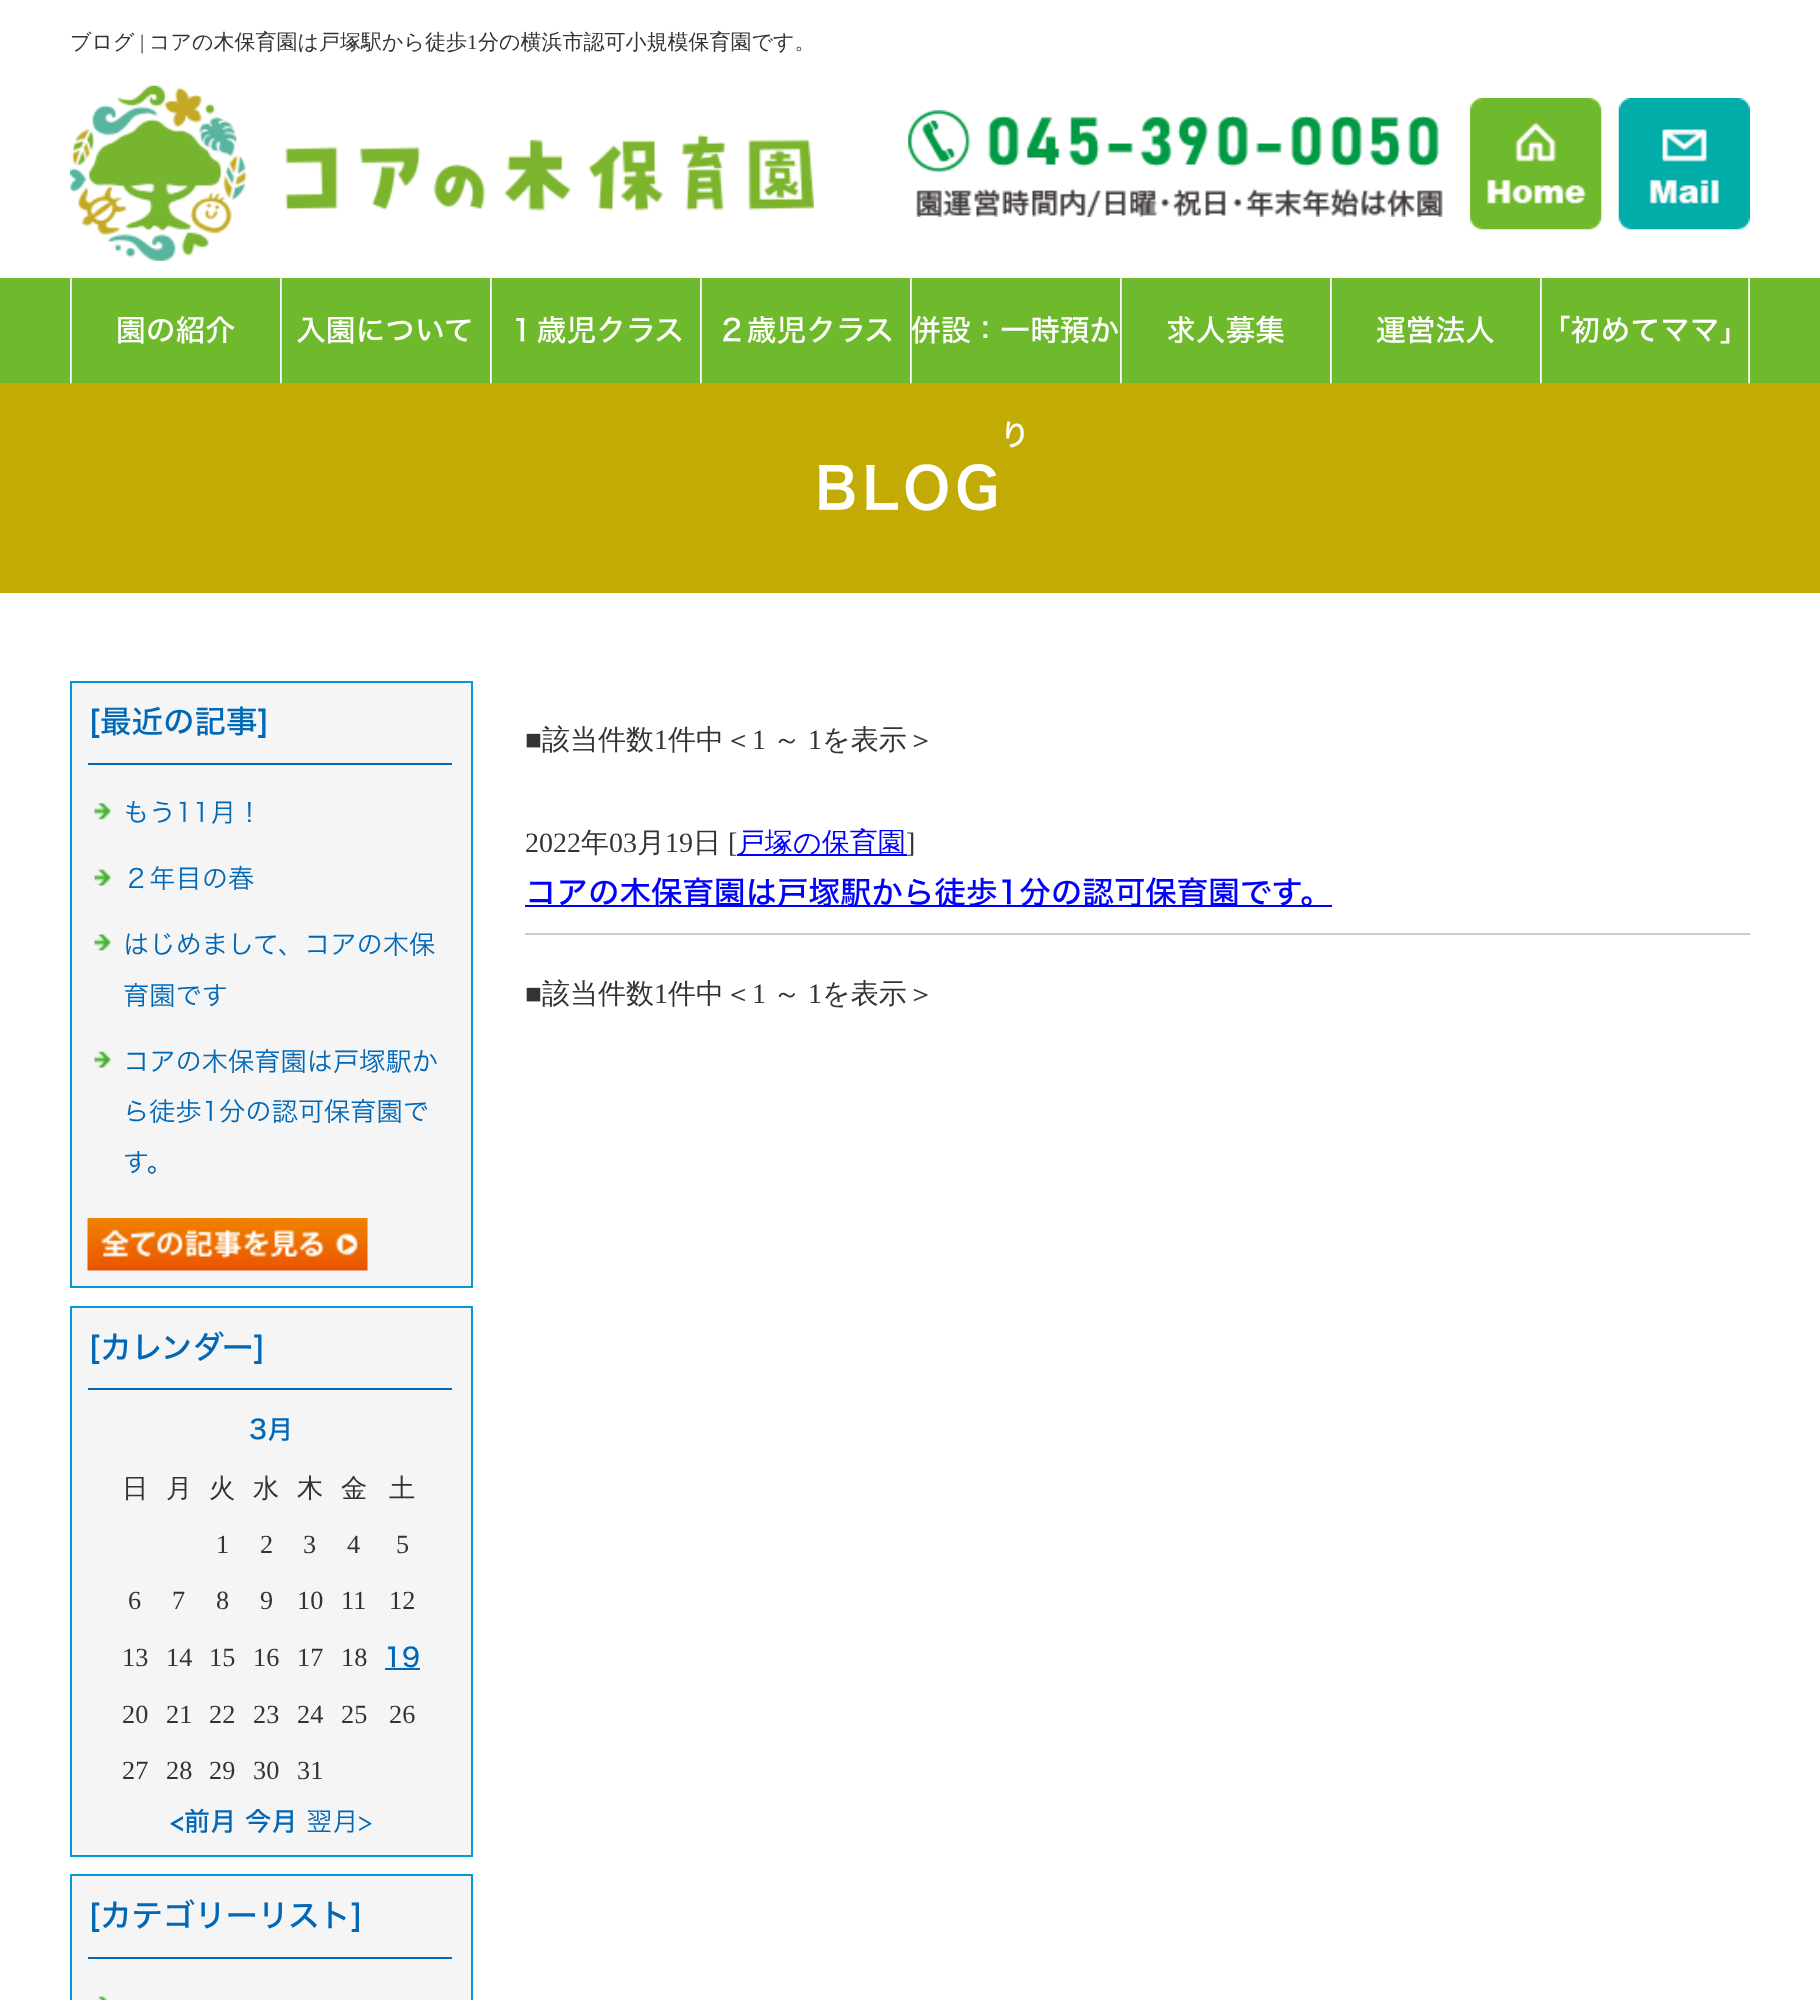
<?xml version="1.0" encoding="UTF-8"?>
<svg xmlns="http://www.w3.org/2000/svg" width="1820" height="2000">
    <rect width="100%" height="100%" fill="#FFFFFF"/>
    <text x="70" y="49" font-family="WenQuanYi Zen Hei" font-size="21" font-weight="500" fill="#333333">ブログ</text>
    <text x="140" y="49" font-family="Liberation Serif" font-size="21" fill="#333333">|</text>
    <text x="149" y="49" font-family="WenQuanYi Zen Hei" font-size="21" font-weight="500" fill="#333333">コアの木保育園は戸塚駅から徒歩</text>
    <text x="467" y="49" font-family="Liberation Serif" font-size="21" fill="#333333">1</text>
    <text x="478" y="49" font-family="WenQuanYi Zen Hei" font-size="21" font-weight="500" fill="#333333">分の横浜市認可小規模保育園です。</text>
    <image x="70" y="85" width="744" height="176" href="img_01.png"/>
    <image x="908" y="110" width="535" height="107" href="img_02.png"/>
    <image x="1470" y="98" width="132" height="132" href="img_03.png"/>
    <image x="1618" y="98" width="132" height="132" href="img_04.png"/>
    <rect x="0" y="278" width="1820" height="105" fill="#6FBA2C"/>
    <rect x="0" y="383" width="1820" height="210" fill="#C1AB04"/>
    <image x="70" y="278" width="2" height="106" href="img_05.png"/>
    <text x="116" y="341" font-family="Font" font-size="29.75" font-weight="500" fill="#FFFFFF">園の紹介</text>
    <image x="280" y="278" width="2" height="106" href="img_05.png"/>
    <text x="296" y="341" font-family="Font" font-size="29.75" font-weight="500" fill="#FFFFFF">入園について</text>
    <image x="490" y="278" width="2" height="106" href="img_05.png"/>
    <text x="507" y="341" font-family="Font" font-size="29.75" font-weight="500" fill="#FFFFFF">１歳児クラス</text>
    <image x="700" y="278" width="2" height="106" href="img_05.png"/>
    <text x="717" y="341" font-family="Font" font-size="29.75" font-weight="500" fill="#FFFFFF">２歳児クラス</text>
    <image x="910" y="278" width="2" height="106" href="img_05.png"/>
    <text x="911" y="341" font-family="Font" font-size="29.75" font-weight="500" fill="#FFFFFF">併設：一時預か</text>
    <text x="1000" y="446" font-family="Font" font-size="29.75" font-weight="500" fill="#FFFFFF">り</text>
    <image x="1120" y="278" width="2" height="106" href="img_05.png"/>
    <text x="1166" y="341" font-family="Font" font-size="29.75" font-weight="500" fill="#FFFFFF">求人募集</text>
    <image x="1330" y="278" width="2" height="106" href="img_05.png"/>
    <text x="1376" y="341" font-family="Font" font-size="29.75" font-weight="500" fill="#FFFFFF">運営法人</text>
    <image x="1540" y="278" width="210" height="106" href="img_06.png"/>
    <text x="1541" y="341" font-family="Font" font-size="29.75" font-weight="500" fill="#FFFFFF">「初めてママ」</text>
    <text x="815" y="509" font-family="Font" font-size="56" font-weight="600" letter-spacing="5" fill="#FFFFFF">BLOG</text>
    <rect x="71" y="682" width="401" height="605" fill="#F5F5F5" stroke="#0099D9" stroke-width="2"/>
    <text x="88" y="733" font-family="Font" font-size="31.5" font-weight="500" fill="#0068B6">[最近の記事]</text>
    <rect x="88" y="763" width="364" height="2" fill="#0068B6"/>
    <image x="94" y="802" width="17" height="18" href="img_07.png"/>
    <text x="123" y="822" font-family="Font" font-size="26.25" font-weight="300" fill="#0068B6">もう11月！</text>
    <image x="94" y="869" width="17" height="17" href="img_08.png"/>
    <text x="123" y="888" font-family="Font" font-size="26.25" font-weight="300" fill="#0068B6">２年目の春</text>
    <image x="94" y="934" width="17" height="17" href="img_09.png"/>
    <text font-family="Font" font-size="26.25" font-weight="300" fill="#0068B6">
        <tspan x="123" y="954">はじめまして、コアの木保</tspan>
        <tspan x="123" y="1005">育園です</tspan>
    </text>
    <image x="94" y="1051" width="17" height="17" href="img_08.png"/>
    <text font-family="Font" font-size="26.25" font-weight="300" fill="#0068B6">
        <tspan x="123" y="1071">コアの木保育園は戸塚駅か</tspan>
        <tspan x="123" y="1121">ら徒歩1分の認可保育園で</tspan>
        <tspan x="123" y="1172">す。</tspan>
    </text>
    <image x="87" y="1218" width="281" height="53" href="img_10.png"/>
    <rect x="71" y="1307" width="401" height="549" fill="#F5F5F5" stroke="#0099D9" stroke-width="2"/>
    <text x="88" y="1359" font-family="Font" font-size="31.5" font-weight="500" fill="#0068B6">[カレンダー]</text>
    <rect x="88" y="1388" width="364" height="2" fill="#0068B6"/>
    <text x="249" y="1439" font-family="Font" font-size="26.25" font-weight="500" fill="#0068B6">3月</text>
    <text x="122" y="1497" font-family="WenQuanYi Zen Hei" font-size="26.25" font-weight="500" fill="#333333">日</text>
    <text x="166" y="1497" font-family="WenQuanYi Zen Hei" font-size="26.25" font-weight="500" fill="#333333">月</text>
    <text x="209" y="1497" font-family="WenQuanYi Zen Hei" font-size="26.25" font-weight="500" fill="#333333">火</text>
    <text x="253" y="1497" font-family="WenQuanYi Zen Hei" font-size="26.25" font-weight="500" fill="#333333">水</text>
    <text x="297" y="1497" font-family="WenQuanYi Zen Hei" font-size="26.25" font-weight="500" fill="#333333">木</text>
    <text x="341" y="1497" font-family="WenQuanYi Zen Hei" font-size="26.25" font-weight="500" fill="#333333">金</text>
    <text x="389" y="1497" font-family="WenQuanYi Zen Hei" font-size="26.25" font-weight="500" fill="#333333">土</text>
    <text x="216" y="1553" font-family="Liberation Serif" font-size="26.25" fill="#333333">1</text>
    <text x="260" y="1553" font-family="Liberation Serif" font-size="26.25" fill="#333333">2</text>
    <text x="303" y="1553" font-family="Liberation Serif" font-size="26.25" fill="#333333">3</text>
    <text x="347" y="1553" font-family="Liberation Serif" font-size="26.25" fill="#333333">4</text>
    <text x="396" y="1553" font-family="Liberation Serif" font-size="26.25" fill="#333333">5</text>
    <text x="128" y="1609" font-family="Liberation Serif" font-size="26.25" fill="#333333">6</text>
    <text x="172" y="1609" font-family="Liberation Serif" font-size="26.25" fill="#333333">7</text>
    <text x="216" y="1609" font-family="Liberation Serif" font-size="26.25" fill="#333333">8</text>
    <text x="260" y="1609" font-family="Liberation Serif" font-size="26.25" fill="#333333">9</text>
    <text x="297" y="1609" font-family="Liberation Serif" font-size="26.25" fill="#333333">10</text>
    <text x="341" y="1609" font-family="Liberation Serif" font-size="26.25" fill="#333333">11</text>
    <text x="389" y="1609" font-family="Liberation Serif" font-size="26.25" fill="#333333">12</text>
    <text x="122" y="1666" font-family="Liberation Serif" font-size="26.25" fill="#333333">13</text>
    <text x="166" y="1666" font-family="Liberation Serif" font-size="26.25" fill="#333333">14</text>
    <text x="209" y="1666" font-family="Liberation Serif" font-size="26.25" fill="#333333">15</text>
    <text x="253" y="1666" font-family="Liberation Serif" font-size="26.25" fill="#333333">16</text>
    <text x="297" y="1666" font-family="Liberation Serif" font-size="26.25" fill="#333333">17</text>
    <text x="341" y="1666" font-family="Liberation Serif" font-size="26.25" fill="#333333">18</text>
    <text x="384" y="1667" font-family="Font" font-size="26.25" font-weight="500" fill="#0068B6">19</text>
    <rect x="385" y="1668" width="35" height="2" fill="#0068B6"/>
    <text x="122" y="1723" font-family="Liberation Serif" font-size="26.25" fill="#333333">20</text>
    <text x="166" y="1723" font-family="Liberation Serif" font-size="26.25" fill="#333333">21</text>
    <text x="209" y="1723" font-family="Liberation Serif" font-size="26.25" fill="#333333">22</text>
    <text x="253" y="1723" font-family="Liberation Serif" font-size="26.25" fill="#333333">23</text>
    <text x="297" y="1723" font-family="Liberation Serif" font-size="26.25" fill="#333333">24</text>
    <text x="341" y="1723" font-family="Liberation Serif" font-size="26.25" fill="#333333">25</text>
    <text x="389" y="1723" font-family="Liberation Serif" font-size="26.25" fill="#333333">26</text>
    <text x="122" y="1779" font-family="Liberation Serif" font-size="26.25" fill="#333333">27</text>
    <text x="166" y="1779" font-family="Liberation Serif" font-size="26.25" fill="#333333">28</text>
    <text x="209" y="1779" font-family="Liberation Serif" font-size="26.25" fill="#333333">29</text>
    <text x="253" y="1779" font-family="Liberation Serif" font-size="26.25" fill="#333333">30</text>
    <text x="297" y="1779" font-family="Liberation Serif" font-size="26.25" fill="#333333">31</text>
    <text x="170" y="1831" font-family="Font" font-size="26.25" font-weight="500" fill="#0068B6">&lt;前月 今月</text>
    <text x="306" y="1831" font-family="Font" font-size="26.25" font-weight="300" fill="#0068B6">翌月&gt;</text>
    <rect x="71" y="1875" width="401" height="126" fill="#F5F5F5" stroke="#0099D9" stroke-width="2"/>
    <text x="88" y="1927" font-family="Font" font-size="31.5" font-weight="500" fill="#0068B6">[カテゴリーリスト]</text>
    <rect x="88" y="1957" width="364" height="2" fill="#0068B6"/>
    <image x="97" y="1996" width="11" height="4" href="img_11.png"/>
    <text x="525" y="749" font-family="Liberation Serif" font-size="28" fill="#333333">■</text>
    <text x="542" y="749" font-family="WenQuanYi Zen Hei" font-size="28" font-weight="500" fill="#333333">該当件数</text>
    <text x="654" y="749" font-family="Liberation Serif" font-size="28" fill="#333333">1</text>
    <text x="668" y="749" font-family="WenQuanYi Zen Hei" font-size="28" font-weight="500" fill="#333333">件中＜</text>
    <text x="752" y="749" font-family="Liberation Serif" font-size="28" fill="#333333">1</text>
    <text x="773" y="749" font-family="WenQuanYi Zen Hei" font-size="28" font-weight="500" fill="#333333">～</text>
    <text x="808" y="749" font-family="Liberation Serif" font-size="28" fill="#333333">1</text>
    <text x="822" y="749" font-family="WenQuanYi Zen Hei" font-size="28" font-weight="500" fill="#333333">を表示＞</text>
    <rect x="525" y="933" width="1225" height="2" fill="#CCCCCC"/>
    <text x="525" y="852" font-family="Liberation Serif" font-size="28" fill="#333333">2022</text>
    <text x="581" y="852" font-family="WenQuanYi Zen Hei" font-size="28" font-weight="500" fill="#333333">年</text>
    <text x="609" y="852" font-family="Liberation Serif" font-size="28" fill="#333333">03</text>
    <text x="637" y="852" font-family="WenQuanYi Zen Hei" font-size="28" font-weight="500" fill="#333333">月</text>
    <text x="665" y="852" font-family="Liberation Serif" font-size="28" fill="#333333">19</text>
    <text x="693" y="852" font-family="WenQuanYi Zen Hei" font-size="28" font-weight="500" fill="#333333">日</text>
    <text x="728" y="852" font-family="Liberation Serif" font-size="28" fill="#333333">[</text>
    <rect x="737" y="854" width="170" height="2" fill="#0000FF"/>
    <text x="737" y="852" font-family="WenQuanYi Zen Hei" font-size="28" font-weight="500" fill="#0000FF">戸塚の保育園</text>
    <text x="906" y="852" font-family="Liberation Serif" font-size="28" fill="#333333">]</text>
    <rect x="525" y="905" width="807" height="2" fill="#0000FF"/>
    <text x="525" y="904" font-family="Font" font-size="31.5" font-weight="500" fill="#0000FF">コアの木保育園は戸塚駅から徒歩1分の認可保育園です。</text>
    <text x="525" y="1003" font-family="Liberation Serif" font-size="28" fill="#333333">■</text>
    <text x="542" y="1003" font-family="WenQuanYi Zen Hei" font-size="28" font-weight="500" fill="#333333">該当件数</text>
    <text x="654" y="1003" font-family="Liberation Serif" font-size="28" fill="#333333">1</text>
    <text x="668" y="1003" font-family="WenQuanYi Zen Hei" font-size="28" font-weight="500" fill="#333333">件中＜</text>
    <text x="752" y="1003" font-family="Liberation Serif" font-size="28" fill="#333333">1</text>
    <text x="773" y="1003" font-family="WenQuanYi Zen Hei" font-size="28" font-weight="500" fill="#333333">～</text>
    <text x="808" y="1003" font-family="Liberation Serif" font-size="28" fill="#333333">1</text>
    <text x="822" y="1003" font-family="WenQuanYi Zen Hei" font-size="28" font-weight="500" fill="#333333">を表示＞</text>
</svg>
